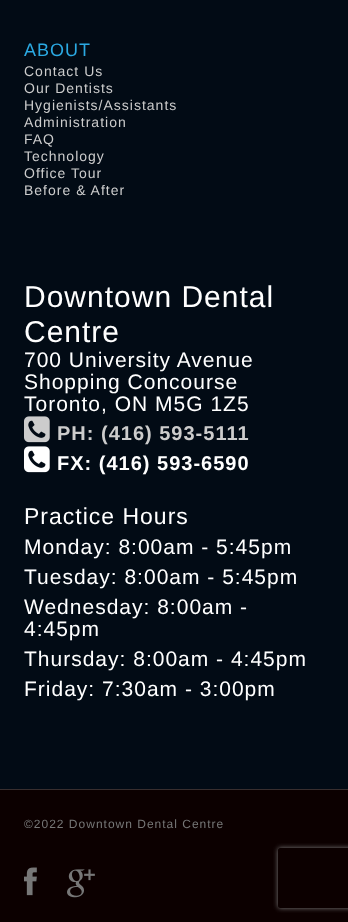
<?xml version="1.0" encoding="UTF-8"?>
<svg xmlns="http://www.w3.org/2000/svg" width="348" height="922">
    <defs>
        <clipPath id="clip1"><path d="M 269 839 H 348 V 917 H 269 Z M 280 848 H 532 C 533 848 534 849 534 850 V 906 C 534 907 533 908 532 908 H 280 C 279 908 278 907 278 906 V 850 C 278 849 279 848 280 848 Z" clip-rule="evenodd"/></clipPath>
        <filter id="blur1" x="-50%" y="-200%" width="200%" height="500%"><feGaussianBlur stdDeviation="2.5"/></filter>
    </defs>
    <rect width="100%" height="100%" fill="#020B15"/>
    <text x="24" y="56" font-family="Liberation Sans" font-size="18" letter-spacing="1" fill="#2BA9E2">ABOUT</text>
    <text font-family="Liberation Sans" font-size="14" letter-spacing="1" fill="#CCCCCC">
        <tspan x="24" y="76">Contact Us</tspan>
        <tspan x="24" y="93">Our Dentists</tspan>
        <tspan x="24" y="110">Hygienists/Assistants</tspan>
        <tspan x="24" y="127">Administration</tspan>
        <tspan x="24" y="144">FAQ</tspan>
        <tspan x="24" y="161">Technology</tspan>
        <tspan x="24" y="178">Office Tour</tspan>
        <tspan x="24" y="195">Before &amp; After</tspan>
    </text>
    <text font-family="Liberation Sans" font-size="30" letter-spacing="1" fill="#FFFFFF">
        <tspan x="24" y="307">Downtown Dental</tspan>
        <tspan x="24" y="342">Centre</tspan>
    </text>
    <text font-family="Liberation Sans" font-size="21" letter-spacing="1" fill="#FFFFFF">
        <tspan x="24" y="367">700 University Avenue</tspan>
        <tspan x="24" y="389">Shopping Concourse</tspan>
        <tspan x="24" y="411">Toronto, ON M5G 1Z5</tspan>
    </text>
    <image x="24" y="416" width="26" height="27" href="img_01.png"/>
    <text x="57" y="440" font-family="Liberation Sans" font-size="20" font-weight="700" letter-spacing="1" fill="#CCCCCC">PH: (416) 593-5111</text>
    <image x="24" y="446" width="26" height="27" href="img_02.png"/>
    <text x="57" y="470" font-family="Liberation Sans" font-size="20" font-weight="700" letter-spacing="1" fill="#FFFFFF">FX: (416) 593-6590</text>
    <text x="24" y="524" font-family="Liberation Sans" font-size="23" letter-spacing="1" fill="#FFFFFF">Practice Hours</text>
    <text font-family="Liberation Sans" font-size="21" letter-spacing="1" fill="#FFFFFF">
        <tspan x="24" y="554">Monday: 8:00am - 5:45pm</tspan>
        <tspan x="24" y="584">Tuesday: 8:00am - 5:45pm</tspan>
        <tspan x="24" y="614">Wednesday: 8:00am -</tspan>
        <tspan x="24" y="636">4:45pm</tspan>
        <tspan x="24" y="666">Thursday: 8:00am - 4:45pm</tspan>
        <tspan x="24" y="696">Friday: 7:30am - 3:00pm</tspan>
    </text>
    <rect x="0" y="790" width="348" height="132" fill="#0C0000"/>
    <rect x="0" y="789" width="348" height="1" fill="#382E2E"/>
    <text x="24" y="828" font-family="Liberation Sans" font-size="12" letter-spacing="1" fill="#777777">©2022 Downtown Dental Centre</text>
    <image x="24" y="867" width="13" height="29" href="img_03.png"/>
    <image x="67" y="869" width="28" height="29" href="img_04.png"/>
    <g clip-path="url(#clip1)">
        <rect x="278" y="848" width="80" height="60" rx="2" fill="#808080" filter="url(#blur1)"/>
    </g>
</svg>
